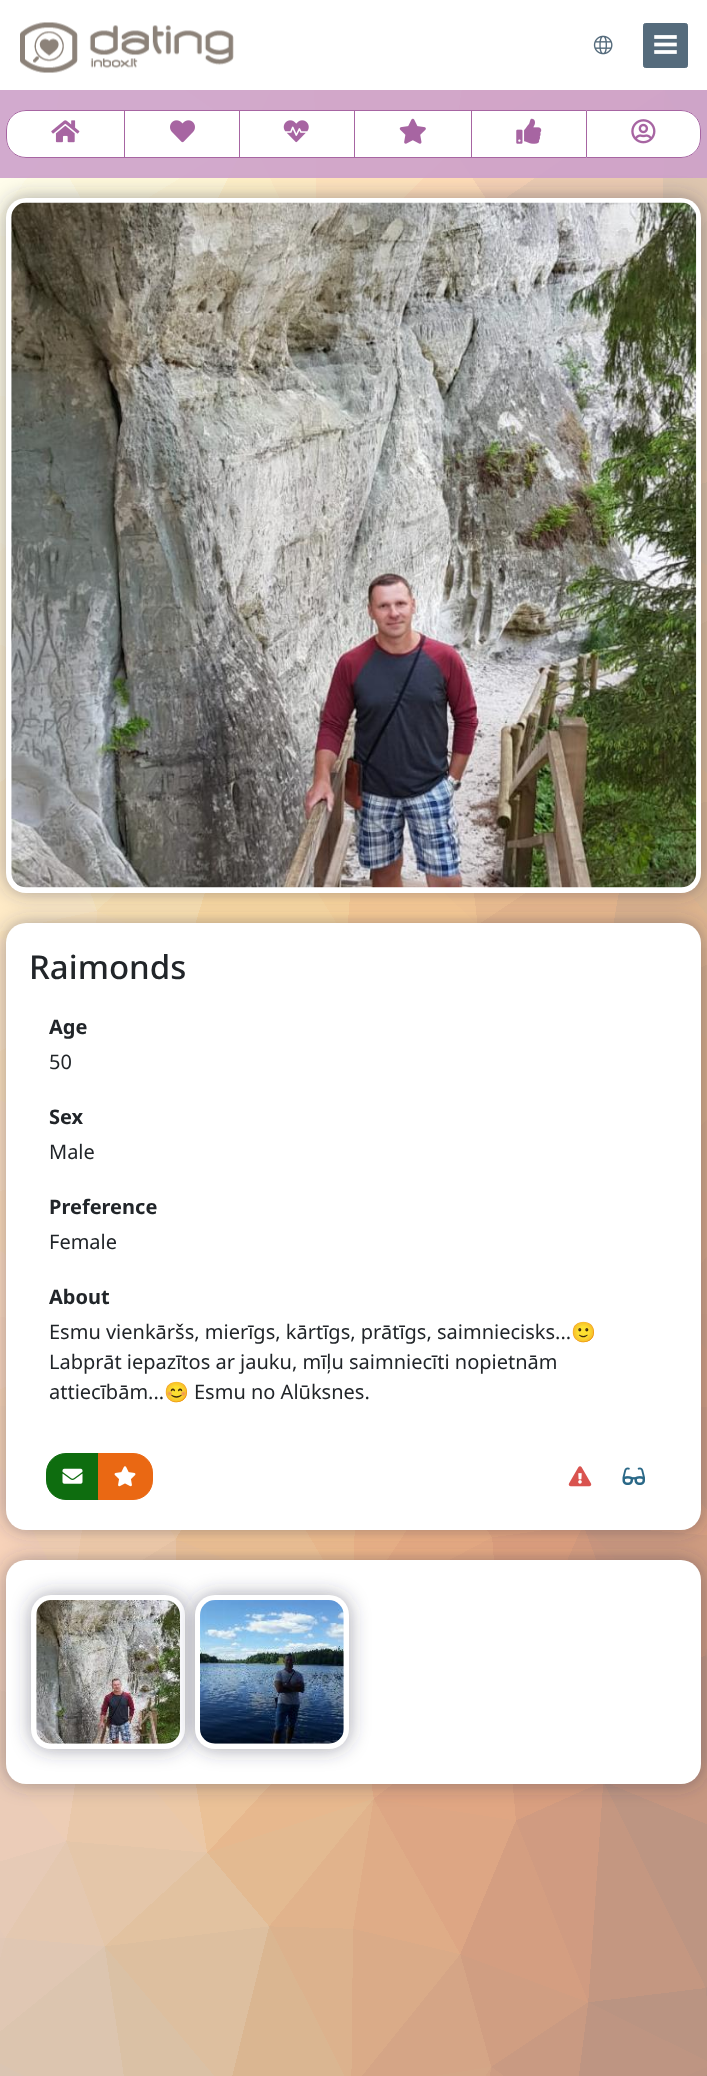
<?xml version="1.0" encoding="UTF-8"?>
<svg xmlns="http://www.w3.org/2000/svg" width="707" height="2076">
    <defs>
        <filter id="blur1" x="-50%" y="-200%" width="200%" height="500%"><feGaussianBlur stdDeviation="10"/></filter>
    </defs>
    <rect width="100%" height="100%" fill="#FFFFFF"/>
    <image x="20" y="22" width="214" height="51" href="img_01.png"/>
    <image x="593" y="35" width="20" height="20" href="img_02.png"/>
    <rect x="643.5" y="23.5" width="44" height="44" rx="2" fill="#556B7C" stroke="#556B7C"/>
    <image x="654" y="35" width="23" height="19" href="img_03.png"/>
    <image x="0" y="90" width="707" height="1986" href="img_04.png"/>
    <rect x="0" y="90" width="707" height="88" fill="#CDA0CA" fill-opacity="0.89"/>
    <path d="M 26 110 H 125 V 158 H 26 C 15 158 6 149 6 138 V 130 C 6 119 15 110 26 110 Z" fill="#FFFFFF"/>
    <path d="M 26 110.5 H 124.5 V 157.5 H 26 C 15 157.5 6.5 149 6.5 138 V 130 C 6.5 119 15 110.5 26 110.5 Z" fill="none" stroke="#9C5297" stroke-opacity="0.89"/>
    <image x="51" y="120" width="29" height="23" href="img_05.png"/>
    <rect x="124.5" y="110.5" width="115" height="47" fill="#FFFFFF" stroke="#A765A2"/>
    <image x="170" y="120" width="25" height="23" href="img_06.png"/>
    <rect x="239.5" y="110.5" width="115" height="47" fill="#FFFFFF" stroke="#A765A2"/>
    <image x="283" y="120" width="26" height="23" href="img_07.png"/>
    <rect x="355" y="111" width="116" height="46" fill="#FFFFFF"/>
    <rect x="354.5" y="110.5" width="118" height="47" fill="none" stroke="#A765A2"/>
    <image x="399" y="118" width="27" height="26" href="img_08.png"/>
    <rect x="472" y="111" width="114" height="46" fill="#FFFFFF"/>
    <rect x="471.5" y="110.5" width="116" height="47" fill="none" stroke="#A765A2"/>
    <image x="516" y="118" width="26" height="26" href="img_09.png"/>
    <path d="M 586 110 H 681 C 692 110 701 119 701 130 V 138 C 701 149 692 158 681 158 H 586 Z" fill="#FFFFFF"/>
    <path d="M 586.5 110.5 H 681 C 692 110.5 700.5 119 700.5 130 V 138 C 700.5 149 692 157.5 681 157.5 H 586.5 Z" fill="none" stroke="#9C5297" stroke-opacity="0.89"/>
    <image x="631" y="119" width="25" height="25" href="img_10.png"/>
    <rect x="6" y="198" width="695" height="695" rx="20" fill="#31314B" fill-opacity="0.45" filter="url(#blur1)"/>
    <rect x="6" y="198" width="695" height="695" rx="20" fill="#FFFFFF"/>
    <image x="11" y="202" width="686" height="686" href="img_11.png"/>
    <rect x="6" y="923" width="695" height="607" rx="20" fill="#31314B" fill-opacity="0.45" filter="url(#blur1)"/>
    <rect x="6" y="923" width="695" height="607" rx="20" fill="#FFFFFF"/>
    <text x="29" y="979" font-family="Noto Sans" font-size="33" font-weight="500" fill="#212529">Raimonds</text>
    <text x="49" y="1034" font-family="Noto Sans" font-size="20" font-weight="700" fill="#212529">Age</text>
    <text x="49" y="1069" font-family="Noto Sans" font-size="20" fill="#212529">50</text>
    <text x="49" y="1124" font-family="Noto Sans" font-size="20" font-weight="700" fill="#212529">Sex</text>
    <text x="49" y="1159" font-family="Noto Sans" font-size="20" fill="#212529">Male</text>
    <text x="49" y="1214" font-family="Noto Sans" font-size="20" font-weight="700" fill="#212529">Preference</text>
    <text x="49" y="1249" font-family="Noto Sans" font-size="20" fill="#212529">Female</text>
    <text x="49" y="1304" font-family="Noto Sans" font-size="20" font-weight="700" fill="#212529">About</text>
    <text x="49" y="1339" font-family="Noto Sans" font-size="20" fill="#212529">Esmu vienkāršs, mierīgs, kārtīgs, prātīgs, saimniecisks...</text>
    <text x="571" y="1339" font-family="Noto Color Emoji" font-size="20" fill="#212529">🙂</text>
    <text font-family="Noto Sans" font-size="20" fill="#212529">
        <tspan x="49" y="1369">Labprāt iepazītos ar jauku, mīļu saimniecīti nopietnām</tspan>
        <tspan x="49" y="1399">attiecībām...</tspan>
    </text>
    <text x="164" y="1399" font-family="Noto Color Emoji" font-size="20" fill="#212529">😊</text>
    <text x="194" y="1399" font-family="Noto Sans" font-size="20" fill="#212529">Esmu no Alūksnes.</text>
    <path d="M 66 1453.5 H 98.5 V 1499.5 H 66 C 55 1499.5 46.5 1491 46.5 1480 V 1473 C 46.5 1462 55 1453.5 66 1453.5 Z" fill="#0E6D0F" stroke="#0E6D0F"/>
    <image x="62" y="1468" width="21" height="16" href="img_12.png"/>
    <path d="M 98.5 1453.5 H 133 C 144 1453.5 152.5 1462 152.5 1473 V 1480 C 152.5 1491 144 1499.5 133 1499.5 H 98.5 Z" fill="#EA6813" stroke="#EA6813"/>
    <image x="114" y="1466" width="22" height="21" href="img_13.png"/>
    <image x="568" y="1466" width="24" height="21" href="img_14.png"/>
    <image x="622" y="1467" width="23" height="18" href="img_15.png"/>
    <rect x="6" y="1560" width="695" height="224" rx="20" fill="#31314B" fill-opacity="0.45" filter="url(#blur1)"/>
    <rect x="6" y="1560" width="695" height="224" rx="20" fill="#FFFFFF"/>
    <rect x="31" y="1595" width="154" height="154" rx="20" fill="#31314B" fill-opacity="0.45" filter="url(#blur1)"/>
    <rect x="31" y="1595" width="154" height="154" rx="20" fill="#FFFFFF"/>
    <image x="36" y="1600" width="144" height="144" href="img_16.png"/>
    <rect x="195" y="1595" width="154" height="154" rx="20" fill="#31314B" fill-opacity="0.45" filter="url(#blur1)"/>
    <rect x="195" y="1595" width="154" height="154" rx="20" fill="#FFFFFF"/>
    <image x="200" y="1600" width="144" height="144" href="img_17.png"/>
</svg>
